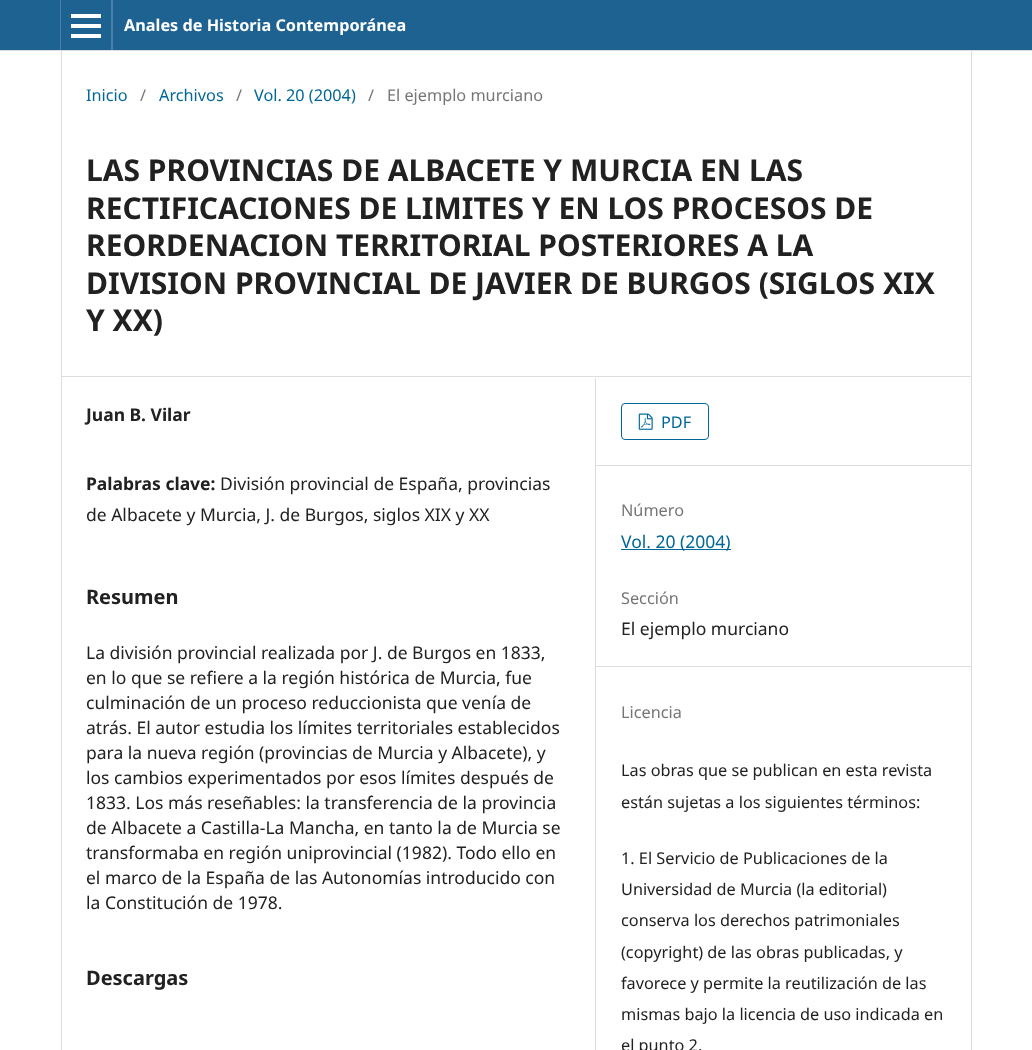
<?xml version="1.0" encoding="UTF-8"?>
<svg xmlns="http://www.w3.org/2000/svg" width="1032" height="1050">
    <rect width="100%" height="100%" fill="#FFFFFF"/>
    <rect x="0" y="0" width="1032" height="50" fill="#1E6292"/>
    <rect x="0" y="50" width="1032" height="1" fill="#DDDDDD"/>
    <rect x="60" y="0" width="1" height="50" fill="#4B81A8"/>
    <rect x="111" y="0" width="2" height="50" fill="#4B81A8"/>
    <rect x="71" y="34" width="30" height="4" fill="#FFFFFF"/>
    <rect x="71" y="14" width="30" height="4" fill="#FFFFFF"/>
    <rect x="71" y="24" width="30" height="4" fill="#FFFFFF"/>
    <text x="124" y="31" font-family="Noto Sans" font-size="16.25" font-weight="700" fill="#FFFFFF">Anales de Historia Contemporánea</text>
    <rect x="61" y="376" width="910" height="1" fill="#DDDDDD"/>
    <rect x="61" y="51" width="1" height="999" fill="#DDDDDD"/>
    <text x="86" y="101" font-family="Noto Sans" font-size="16.25" fill="#006798">Inicio</text>
    <text x="140" y="101" font-family="Noto Sans" font-size="16.25" fill="#757575">/</text>
    <text x="159" y="101" font-family="Noto Sans" font-size="16.25" fill="#006798">Archivos</text>
    <text x="236" y="101" font-family="Noto Sans" font-size="16.25" fill="#757575">/</text>
    <text x="254" y="101" font-family="Noto Sans" font-size="16.25" fill="#006798">Vol. 20 (2004)</text>
    <text x="368" y="101" font-family="Noto Sans" font-size="16.25" fill="#757575">/</text>
    <text x="387" y="101" font-family="Noto Sans" font-size="16.25" fill="#757575">El ejemplo murciano</text>
    <text font-family="Noto Sans" font-size="30" font-weight="700" fill="#212121">
        <tspan x="86" y="181">LAS PROVINCIAS DE ALBACETE Y MURCIA EN LAS</tspan>
        <tspan x="86" y="219">RECTIFICACIONES DE LIMITES Y EN LOS PROCESOS DE</tspan>
        <tspan x="86" y="256">REORDENACION TERRITORIAL POSTERIORES A LA</tspan>
        <tspan x="86" y="294">DIVISION PROVINCIAL DE JAVIER DE BURGOS (SIGLOS XIX</tspan>
        <tspan x="86" y="331">Y XX)</tspan>
    </text>
    <rect x="595" y="378" width="1" height="672" fill="#DDDDDD"/>
    <text x="86" y="421" font-family="Noto Sans" font-size="17.5" font-weight="700" fill="#212121">Juan B. Vilar</text>
    <text x="86" y="490" font-family="Noto Sans" font-size="17.5" font-weight="700" fill="#212121">Palabras clave:</text>
    <text x="220" y="490" font-family="Noto Sans" font-size="17.5" fill="#212121">División provincial de España, provincias</text>
    <text x="86" y="521" font-family="Noto Sans" font-size="17.5" fill="#212121">de Albacete y Murcia, J. de Burgos, siglos XIX y XX</text>
    <text x="86" y="604" font-family="Noto Sans" font-size="20" font-weight="700" fill="#212121">Resumen</text>
    <text font-family="Noto Sans" font-size="17.5" fill="#212121">
        <tspan x="86" y="659">La división provincial realizada por J. de Burgos en 1833,</tspan>
        <tspan x="86" y="684">en lo que se refiere a la región histórica de Murcia, fue</tspan>
        <tspan x="86" y="709">culminación de un proceso reduccionista que venía de</tspan>
        <tspan x="86" y="734">atrás. El autor estudia los límites territoriales establecidos</tspan>
        <tspan x="86" y="759">para la nueva región (provincias de Murcia y Albacete), y</tspan>
        <tspan x="86" y="784">los cambios experimentados por esos límites después de</tspan>
        <tspan x="86" y="809">1833. Los más reseñables: la transferencia de la provincia</tspan>
        <tspan x="86" y="834">de Albacete a Castilla-La Mancha, en tanto la de Murcia se</tspan>
        <tspan x="86" y="859">transformaba en región uniprovincial (1982). Todo ello en</tspan>
        <tspan x="86" y="884">el marco de la España de las Autonomías introducido con</tspan>
        <tspan x="86" y="909">la Constitución de 1978.</tspan>
    </text>
    <text x="86" y="985" font-family="Noto Sans" font-size="20" font-weight="700" fill="#212121">Descargas</text>
    <rect x="596" y="465" width="375" height="1" fill="#DDDDDD"/>
    <rect x="621.5" y="403.5" width="87" height="36" rx="3.5" fill="none" stroke="#006798"/>
    <image x="638" y="413" width="15" height="17" href="img_01.png"/>
    <text x="661" y="428" font-family="Noto Sans" font-size="16.25" fill="#006798">PDF</text>
    <rect x="596" y="666" width="375" height="1" fill="#DDDDDD"/>
    <text x="621" y="516" font-family="Noto Sans" font-size="16.25" fill="#757575">Número</text>
    <rect x="621" y="549" width="110" height="1" fill="#006798"/>
    <text x="621" y="548" font-family="Noto Sans" font-size="17.5" fill="#006798">Vol. 20 (2004)</text>
    <text x="621" y="604" font-family="Noto Sans" font-size="16.25" fill="#757575">Sección</text>
    <text x="621" y="635" font-family="Noto Sans" font-size="17.5" fill="#212121">El ejemplo murciano</text>
    <text x="621" y="718" font-family="Noto Sans" font-size="16.25" fill="#757575">Licencia</text>
    <text font-family="Noto Sans" font-size="16.25" fill="#212121">
        <tspan x="621" y="776">Las obras que se publican en esta revista</tspan>
        <tspan x="621" y="808">están sujetas a los siguientes términos:</tspan>
    </text>
    <text font-family="Noto Sans" font-size="16.25" fill="#212121">
        <tspan x="621" y="864">1. El Servicio de Publicaciones de la</tspan>
        <tspan x="621" y="895">Universidad de Murcia (la editorial)</tspan>
        <tspan x="621" y="926">conserva los derechos patrimoniales</tspan>
        <tspan x="621" y="958">(copyright) de las obras publicadas, y</tspan>
        <tspan x="621" y="989">favorece y permite la reutilización de las</tspan>
        <tspan x="621" y="1020">mismas bajo la licencia de uso indicada en</tspan>
        <tspan x="621" y="1051">el punto 2.</tspan>
    </text>
    <rect x="971" y="51" width="1" height="999" fill="#DDDDDD"/>
</svg>
